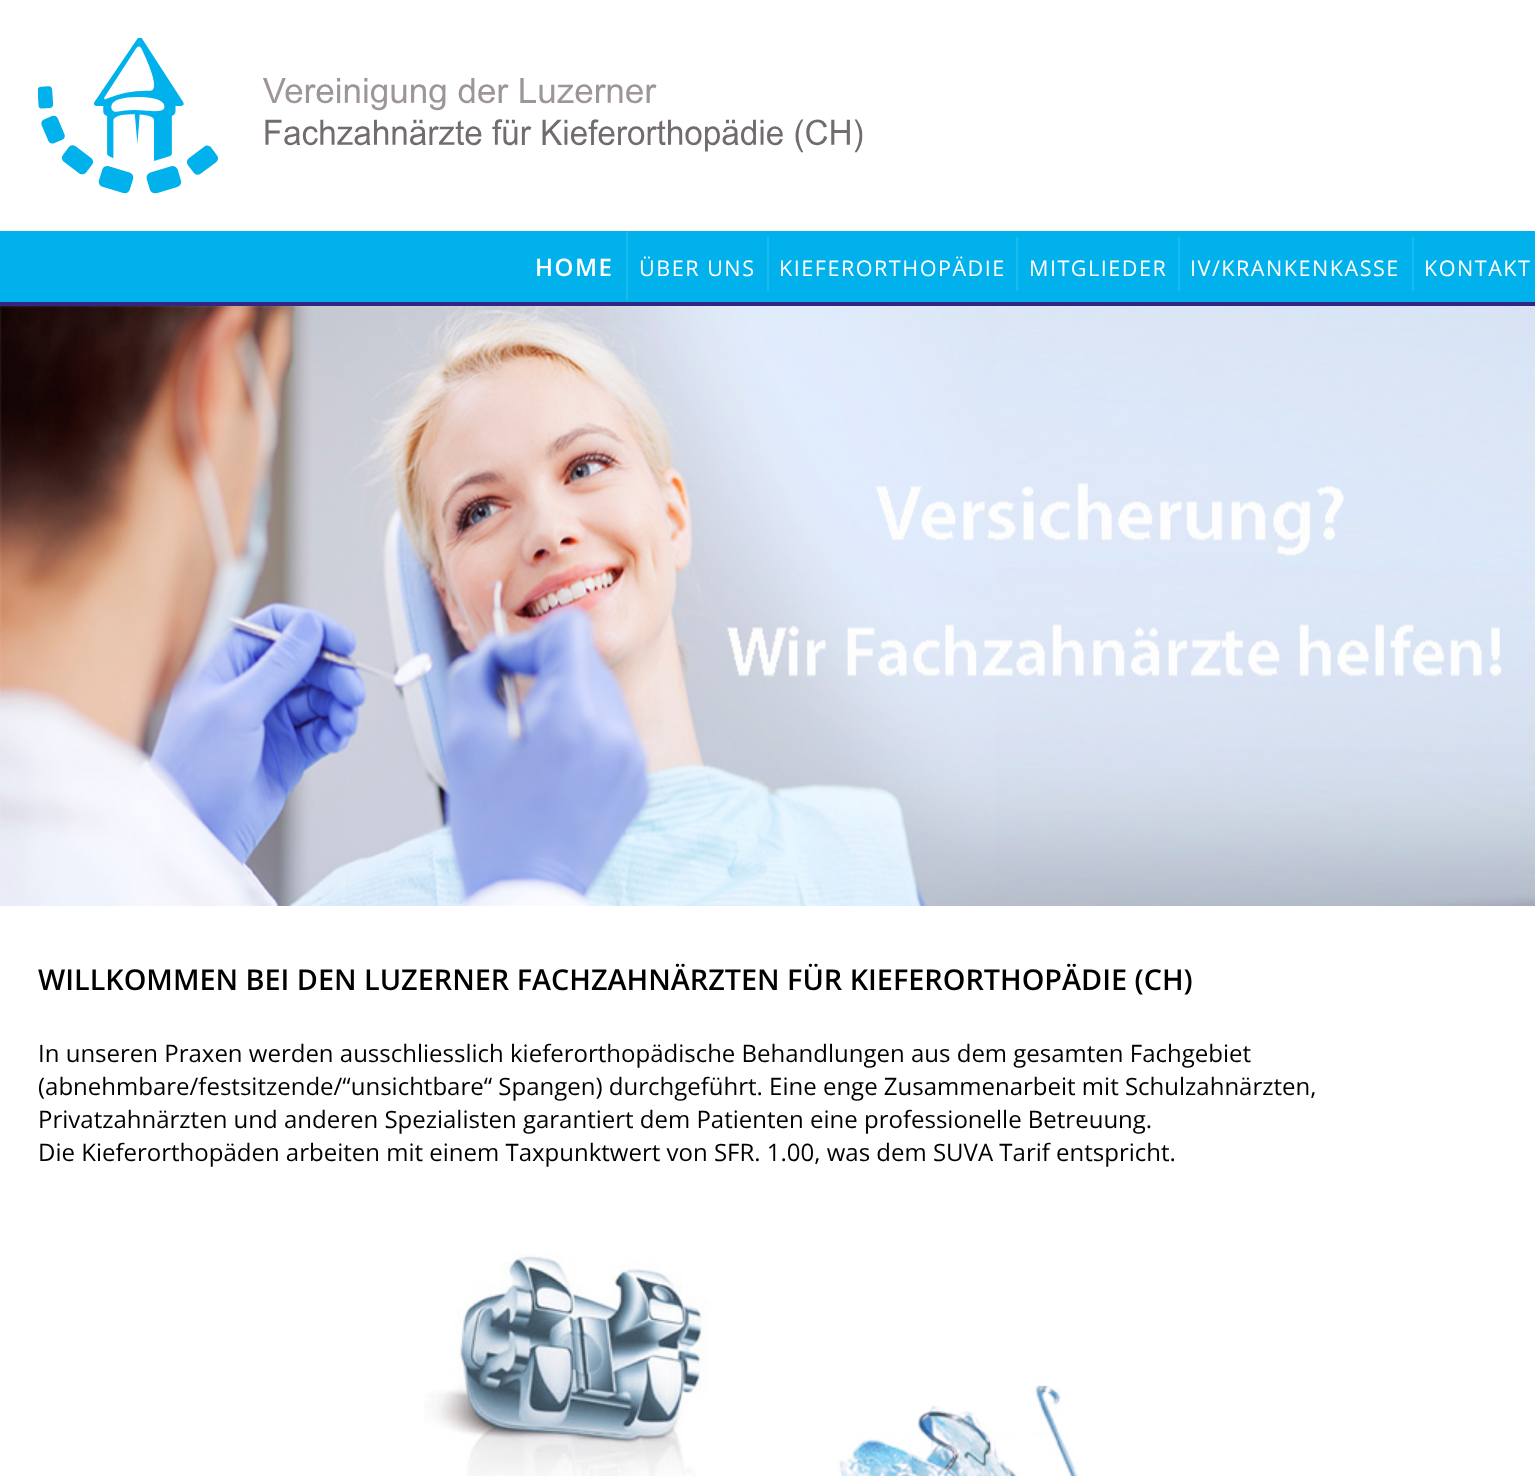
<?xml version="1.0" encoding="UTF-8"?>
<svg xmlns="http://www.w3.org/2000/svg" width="1535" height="1476">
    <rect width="100%" height="100%" fill="#FFFFFF"/>
    <image x="38" y="38" width="825" height="156" href="img_01.png"/>
    <rect x="0" y="231" width="1535" height="71" fill="#01B1EC"/>
    <rect x="0" y="302" width="1535" height="4" fill="#312783"/>
    <rect x="626" y="231" width="2" height="69" fill="#1AB9EE"/>
    <text x="535" y="276" font-family="Open Sans" font-size="24" font-weight="600" letter-spacing="1.5" fill="#FFFFFF">HOME</text>
    <rect x="767" y="237" width="2" height="54" fill="#1AB9EE"/>
    <text x="639" y="276" font-family="Open Sans" font-size="21.6" letter-spacing="1.5" fill="#FFFFFF">ÜBER UNS</text>
    <rect x="1016" y="237" width="2" height="54" fill="#1AB9EE"/>
    <text x="779" y="276" font-family="Open Sans" font-size="21.6" letter-spacing="1.5" fill="#FFFFFF">KIEFERORTHOPÄDIE</text>
    <rect x="1178" y="237" width="2" height="54" fill="#1AB9EE"/>
    <text x="1029" y="276" font-family="Open Sans" font-size="21.6" letter-spacing="1.5" fill="#FFFFFF">MITGLIEDER</text>
    <rect x="1412" y="237" width="2" height="54" fill="#1AB9EE"/>
    <text x="1190" y="276" font-family="Open Sans" font-size="21.6" letter-spacing="1.5" fill="#FFFFFF">IV/KRANKENKASSE</text>
    <text x="1424" y="276" font-family="Open Sans" font-size="21.6" letter-spacing="1.5" fill="#FFFFFF">KONTAKT</text>
    <image x="0" y="306" width="1535" height="600" href="img_02.png"/>
    <text x="38" y="990" font-family="Open Sans" font-size="28.8" font-weight="600" fill="#000000">WILLKOMMEN BEI DEN LUZERNER FACHZAHNÄRZTEN FÜR KIEFERORTHOPÄDIE (CH)</text>
    <text font-family="Open Sans" font-size="24" fill="#000000">
        <tspan x="38" y="1062">In unseren Praxen werden ausschliesslich kieferorthopädische Behandlungen aus dem gesamten Fachgebiet</tspan>
        <tspan x="38" y="1095">(abnehmbare/festsitzende/“unsichtbare“ Spangen) durchgeführt. Eine enge Zusammenarbeit mit Schulzahnärzten,</tspan>
        <tspan x="38" y="1128">Privatzahnärzten und anderen Spezialisten garantiert dem Patienten eine professionelle Betreuung.</tspan>
        <tspan x="38" y="1161">Die Kieferorthopäden arbeiten mit einem Taxpunktwert von SFR. 1.00, was dem SUVA Tarif entspricht.</tspan>
    </text>
    <image x="424" y="1253" width="654" height="223" href="img_03.png"/>
</svg>
